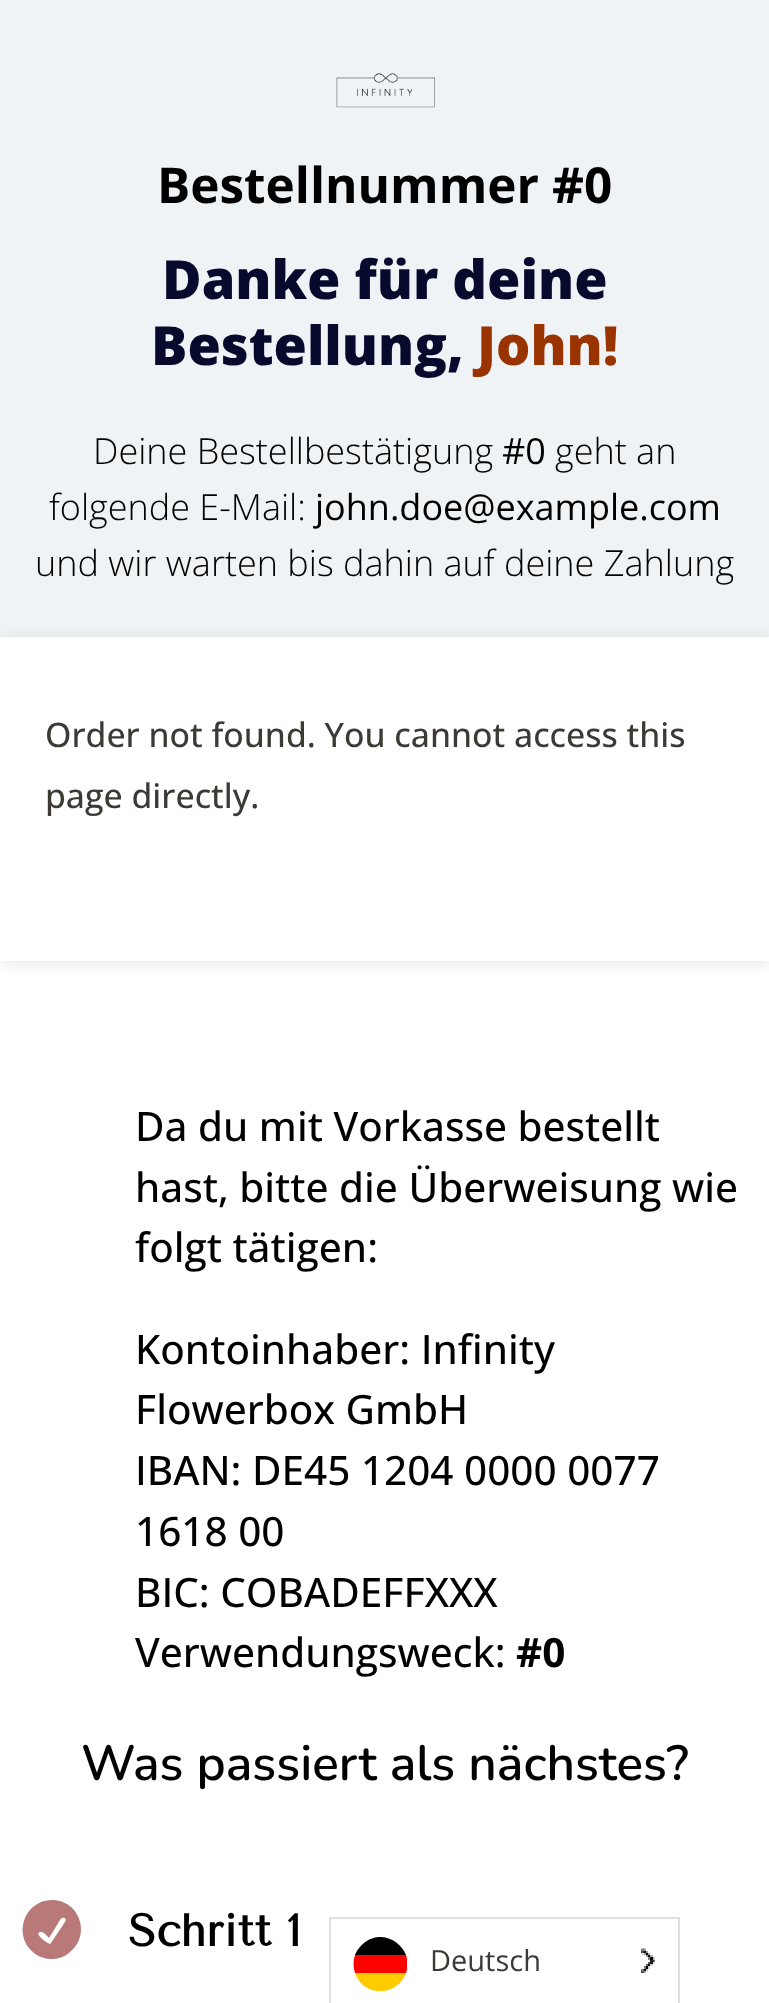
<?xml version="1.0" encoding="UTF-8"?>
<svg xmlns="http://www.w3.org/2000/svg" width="769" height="2003">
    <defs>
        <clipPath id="clip1"><path d="M 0 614 H 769 V 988 H 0 Z M 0 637 H 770 V 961 H 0 Z" clip-rule="evenodd"/></clipPath>
        <filter id="blur1" x="-50%" y="-200%" width="200%" height="500%"><feGaussianBlur stdDeviation="8"/></filter>
        <clipPath id="clip2"><rect x="353" y="1937" width="54" height="54"/></clipPath>
    </defs>
    <rect width="100%" height="100%" fill="#EFF3F6"/>
    <image x="336" y="73" width="99" height="35" href="img_01.png"/>
    <text x="157" y="203" font-family="Open Sans" font-size="49.5" font-weight="700" fill="#000000">Bestellnummer #0</text>
    <text x="162" y="299" font-family="Open Sans" font-size="54" font-weight="800" fill="#080A2D">Danke für deine</text>
    <text x="151" y="365" font-family="Open Sans" font-size="54" font-weight="800" fill="#080A2D">Bestellung,</text>
    <text x="477" y="365" font-family="Open Sans" font-size="54" font-weight="800" fill="#993300">John!</text>
    <text x="93" y="464" font-family="Open Sans" font-size="36" font-weight="300" fill="#000000">Deine Bestellbestätigung</text>
    <text x="502" y="464" font-family="Open Sans" font-size="36" fill="#000000">#0</text>
    <text x="555" y="464" font-family="Open Sans" font-size="36" font-weight="300" fill="#000000">geht an</text>
    <text x="49" y="520" font-family="Open Sans" font-size="36" font-weight="300" fill="#000000">folgende E-Mail:</text>
    <text x="315" y="520" font-family="Open Sans" font-size="36" fill="#000000">john.doe@example.com</text>
    <text x="35" y="576" font-family="Open Sans" font-size="36" font-weight="300" fill="#000000">und wir warten bis dahin auf deine Zahlung</text>
    <rect x="0" y="637" width="769" height="1366" fill="#FFFFFF"/>
    <g clip-path="url(#clip1)">
        <rect x="2" y="639" width="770" height="324" fill="#CECECE" fill-opacity="0.5" filter="url(#blur1)"/>
    </g>
    <text font-family="Open Sans" font-size="33.75" font-weight="500" fill="#3D3A35">
        <tspan x="45" y="747">Order not found. You cannot access this</tspan>
        <tspan x="45" y="808">page directly.</tspan>
    </text>
    <text font-family="Open Sans" font-size="40.5" font-weight="500" fill="#000000">
        <tspan x="135" y="1141">Da du mit Vorkasse bestellt</tspan>
        <tspan x="135" y="1202">hast, bitte die Überweisung wie</tspan>
        <tspan x="135" y="1262">folgt tätigen:</tspan>
    </text>
    <text font-family="Open Sans" font-size="40.5" font-weight="500" fill="#000000">
        <tspan x="135" y="1364">Kontoinhaber: Infinity</tspan>
        <tspan x="135" y="1424">Flowerbox GmbH</tspan>
        <tspan x="135" y="1485">IBAN: DE45 1204 0000 0077</tspan>
        <tspan x="135" y="1546">1618 00</tspan>
        <tspan x="135" y="1607">BIC: COBADEFFXXX</tspan>
        <tspan x="135" y="1667">Verwendungsweck:</tspan>
    </text>
    <text x="516" y="1667" font-family="Open Sans" font-size="40.5" font-weight="700" fill="#000000">#0</text>
    <text x="81" y="1780" font-family="Nunito" font-size="49.5" font-weight="200" fill="#000000">Was passiert als nächstes?</text>
    <path d="M 52 1900 C 24 1900 12 1936 34 1953 C 39 1957 46 1959 52 1959 C 58 1959 64 1957 69 1953 C 92 1936 80 1900 52 1900 Z M 65 1922 L 51 1943 L 50 1944 L 48 1943 C 47 1943 34 1934 40 1932 C 43 1931 47 1936 49 1938 L 57 1925 C 58 1924 61 1916 64 1918 C 66 1918 66 1920 65 1922 Z" fill="#B97979"/>
    <text x="128" y="1946" font-family="Tenor Sans" font-size="45" font-weight="700" fill="#000000">Schritt 1</text>
    <rect x="330" y="1918" width="349" height="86" fill="none" stroke="#E0E0E0" stroke-width="2"/>
    <path d="M 377 1991 C 366 1990 358 1982 355 1973 H 406 C 403 1982 394 1990 384 1991 Z" fill="#FFCC00"/>
    <path d="M 380 1937 C 392 1937 402 1945 406 1955 H 355 C 359 1945 369 1937 380 1937 Z" fill="#000001"/>
    <g clip-path="url(#clip2)">
        <path d="M 355 1973 C 353 1967 353 1961 355 1955 H 406 C 408 1961 408 1967 406 1973 Z" fill="#FF0000"/>
    </g>
    <text x="430" y="1971" font-family="Open Sans" font-size="29" fill="#3D3A35">Deutsch</text>
    <image x="641" y="1948" width="14" height="25" href="img_02.png"/>
</svg>
